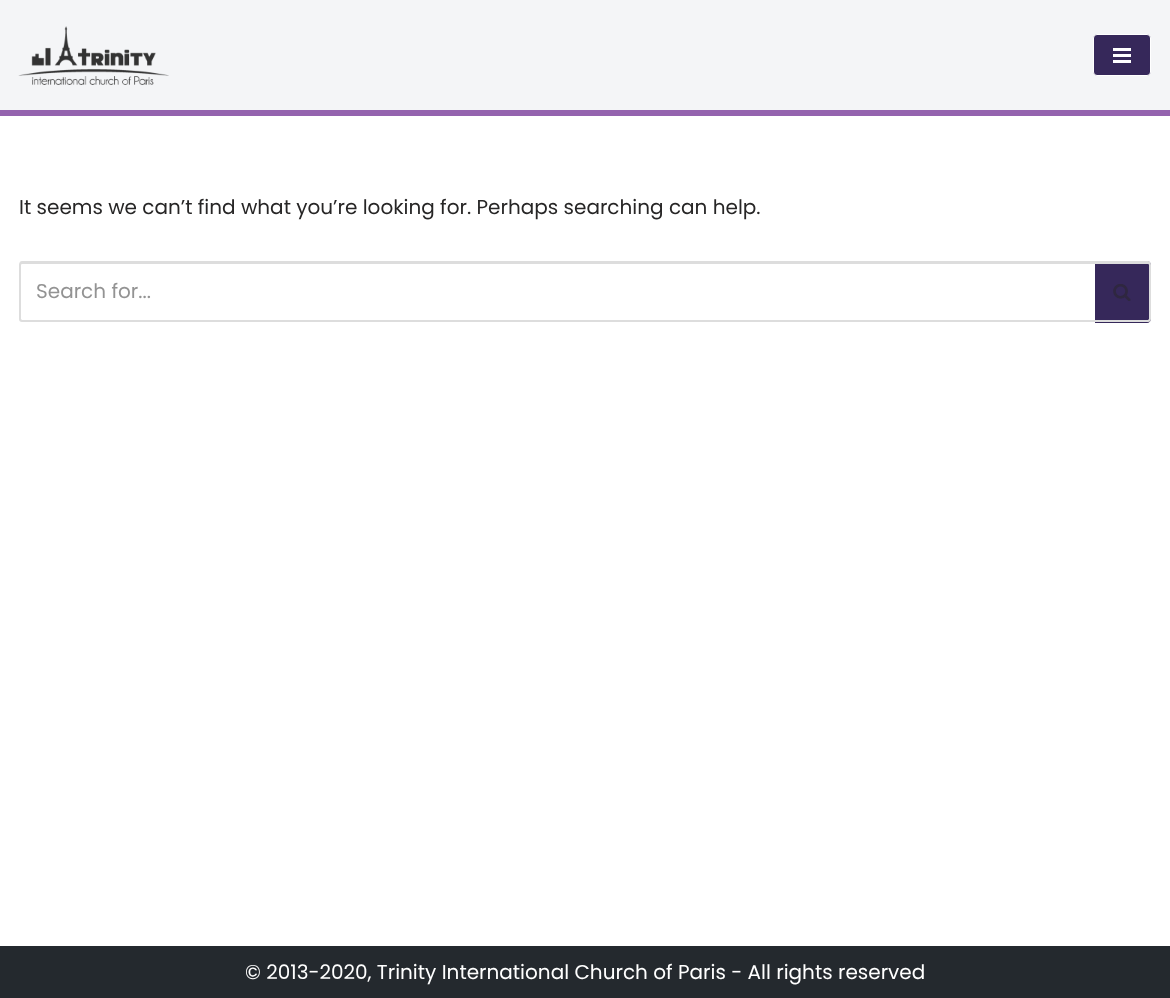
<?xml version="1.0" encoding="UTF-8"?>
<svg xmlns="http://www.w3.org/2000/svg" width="1170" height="998">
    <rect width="100%" height="100%" fill="#FFFFFF"/>
    <rect x="0" y="0" width="1170" height="110" fill="#F4F5F7"/>
    <rect x="0" y="110" width="1170" height="6" fill="#9463AE"/>
    <image x="18" y="26" width="151" height="59" href="img_01.png"/>
    <rect x="1093.5" y="34.5" width="57" height="41" rx="3.5" fill="#36285A" stroke="#FFFFFF"/>
    <rect x="1113" y="48" width="18" height="3" fill="#FFFFFF"/>
    <rect x="1113" y="54" width="18" height="3" fill="#FFFFFF"/>
    <rect x="1113" y="60" width="18" height="3" fill="#FFFFFF"/>
    <text x="19" y="214" font-family="Poppins" font-size="20" fill="#272626">It seems we can’t find what you’re looking for. Perhaps searching can help.</text>
    <path d="M 22 261 H 1095 V 322 H 22 C 20 322 19 321 19 319 V 265 C 19 263 20 261 22 261 Z M 22 264 H 1095 V 320 H 22 C 22 320 21 319 21 319 V 265 C 21 264 22 264 22 264 Z" fill="#DDDDDD" fill-rule="evenodd"/>
    <text x="36" y="298" font-family="Poppins" font-size="20" fill="#939393">Search for...</text>
    <path d="M 1095 261 H 1147 C 1149 261 1151 263 1151 265 V 319 C 1151 321 1149 323 1147 323 H 1095 Z" fill="#36285A"/>
    <path d="M 1095 261 H 1148 C 1150 261 1151 263 1151 265 V 319 C 1151 321 1150 322 1148 322 H 1095 Z M 1095 264 H 1148 C 1148 264 1149 264 1149 265 V 319 C 1149 319 1148 320 1148 320 H 1095 Z" fill="#DDDDDD" fill-rule="evenodd"/>
    <image x="1113" y="284" width="18" height="17" href="img_02.png"/>
    <rect x="0" y="946" width="1170" height="52" fill="#24292E"/>
    <text x="245" y="979" font-family="Poppins" font-size="20" fill="#FFFFFF">© 2013-2020, Trinity International Church of Paris - All rights reserved</text>
</svg>
